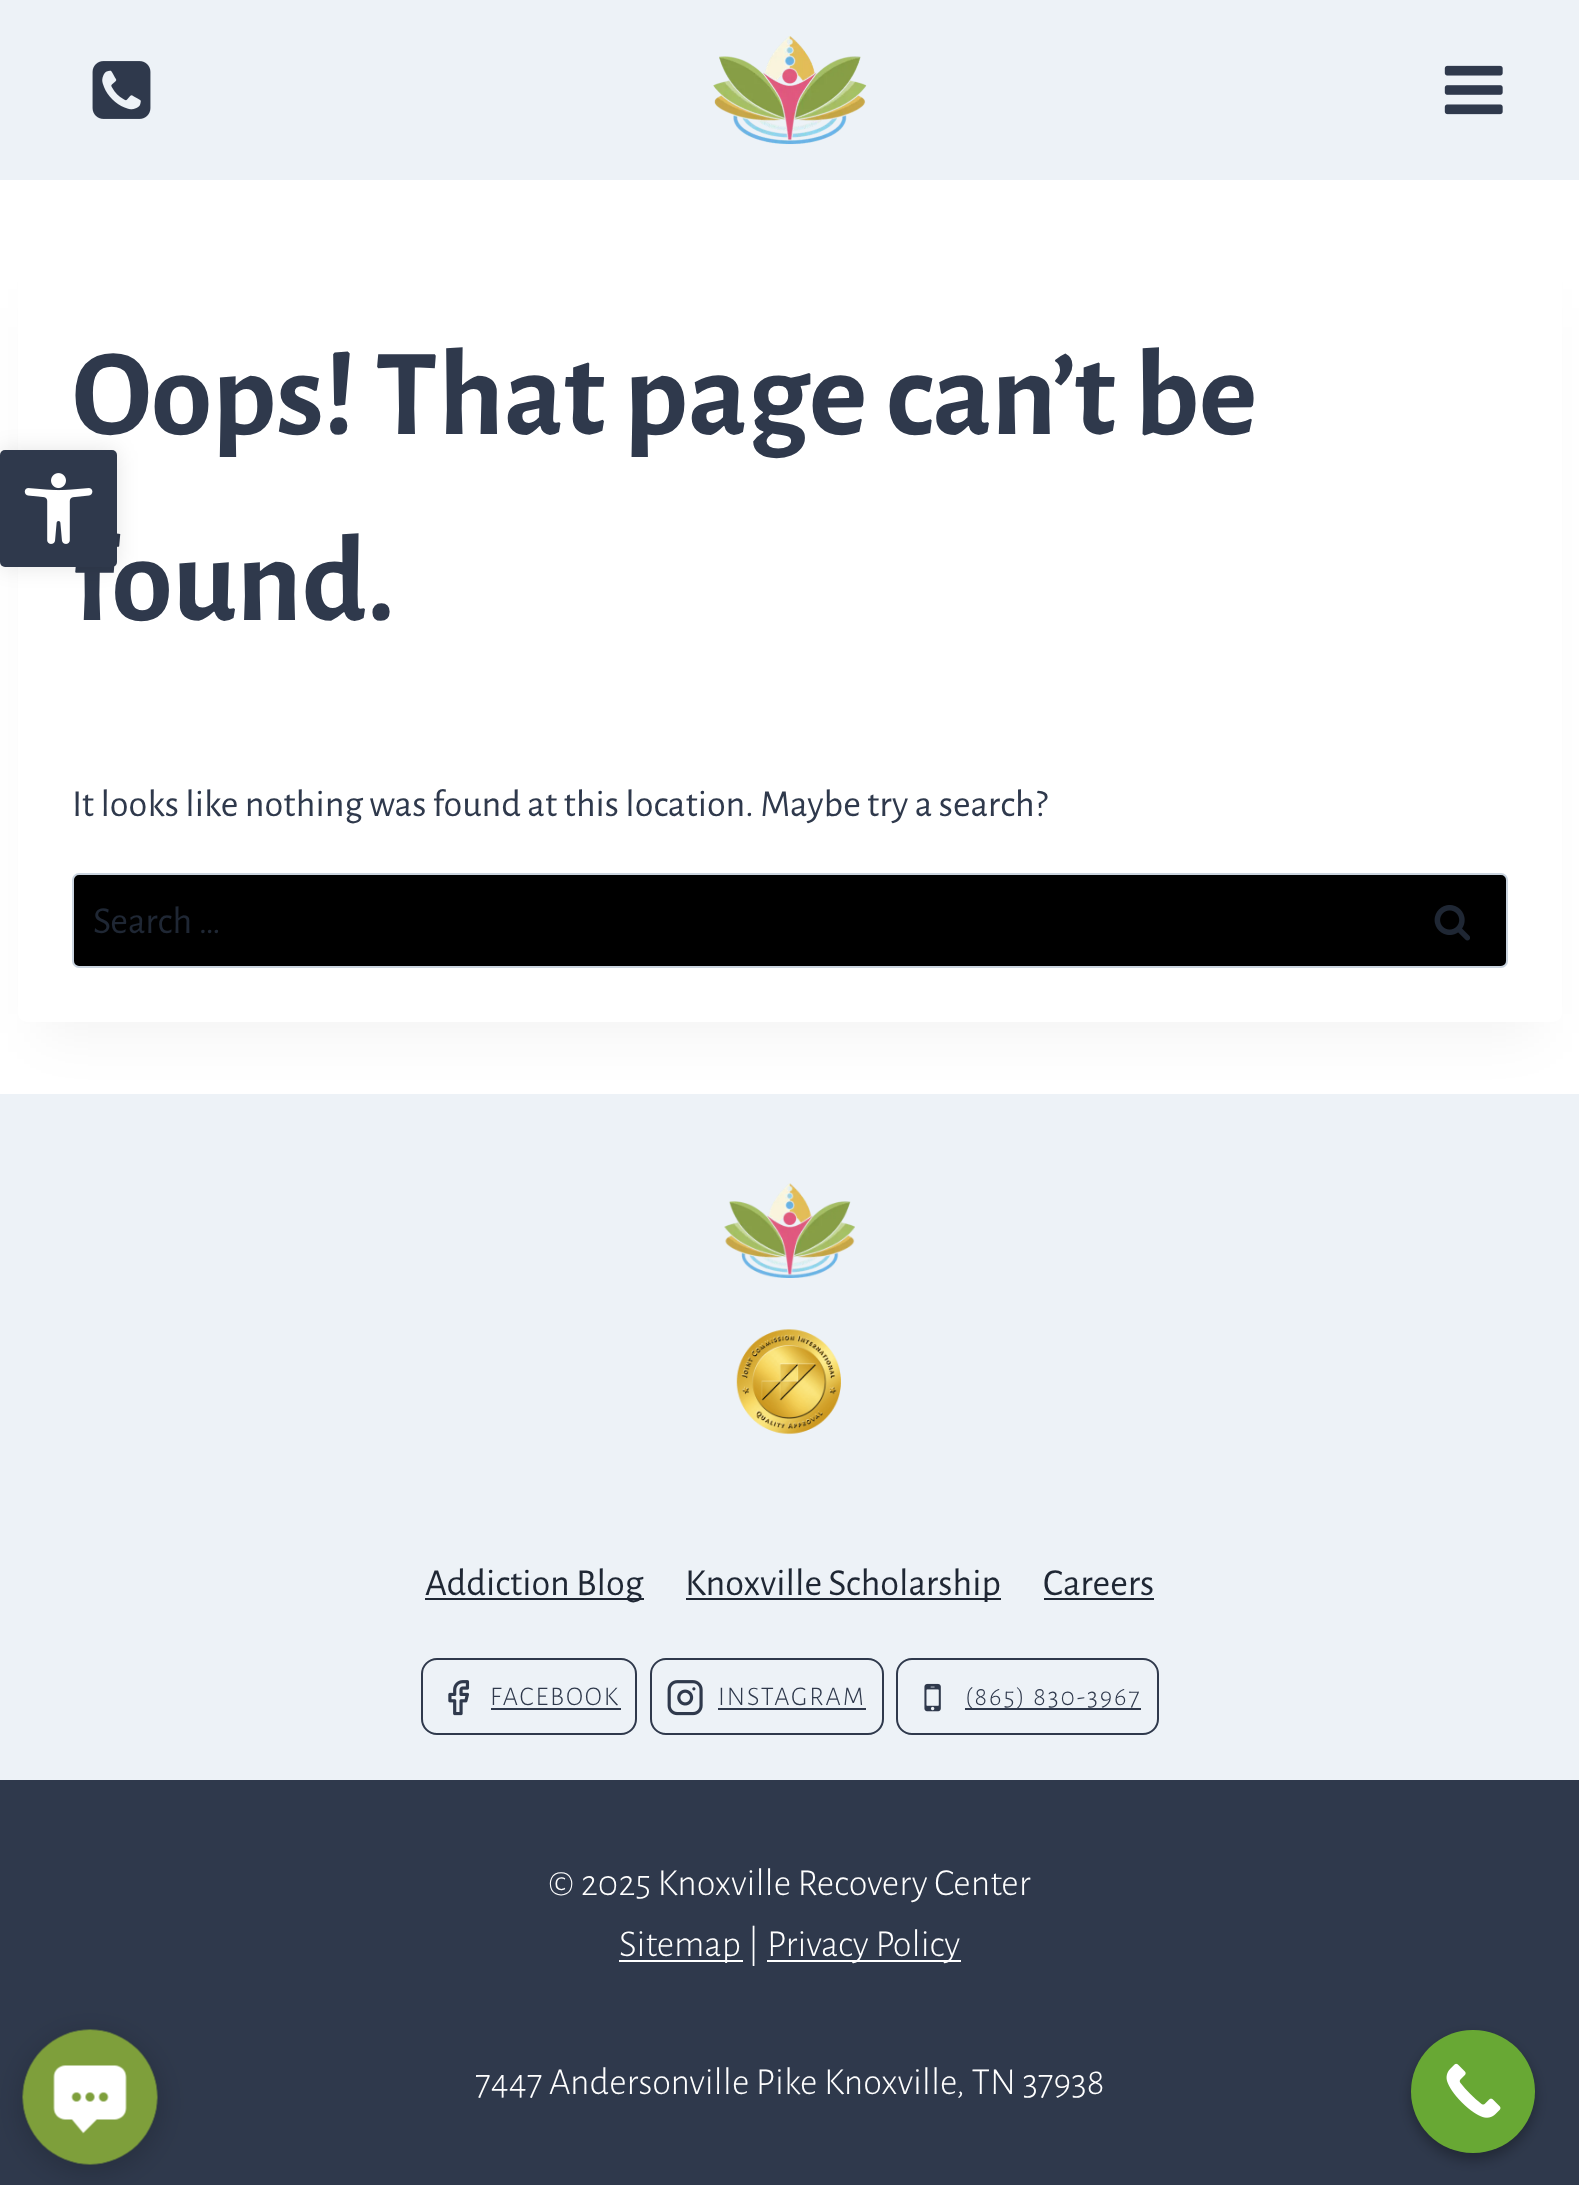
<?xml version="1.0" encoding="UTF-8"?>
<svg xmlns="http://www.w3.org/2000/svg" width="1579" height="2185">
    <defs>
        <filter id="blur1" x="-50%" y="-200%" width="200%" height="500%"><feGaussianBlur stdDeviation="28"/></filter>
        <filter id="blur2" x="-50%" y="-200%" width="200%" height="500%"><feGaussianBlur stdDeviation="11"/></filter>
        <filter id="blur3" x="-50%" y="-200%" width="200%" height="500%"><feGaussianBlur stdDeviation="15.5"/></filter>
        <filter id="blur4" x="-50%" y="-200%" width="200%" height="500%"><feGaussianBlur stdDeviation="7"/></filter>
    </defs>
    <rect width="100%" height="100%" fill="#FFFFFF"/>
    <rect x="0" y="0" width="1579" height="180" fill="#EDF2F7"/>
    <image x="92" y="61" width="59" height="58" href="img_01.png"/>
    <image x="713" y="36" width="154" height="109" href="img_02.png"/>
    <image x="1444" y="65" width="59" height="50" href="img_03.png"/>
    <rect x="0" y="1094" width="1579" height="686" fill="#EDF2F7"/>
    <rect x="41" y="308" width="1498" height="725" fill="#000000" fill-opacity="0.05" filter="url(#blur1)"/>
    <rect x="18" y="252" width="1544" height="770" rx="9" fill="#FFFFFF"/>
    <text font-family="Alegreya Sans" font-size="123.75" font-weight="700" fill="#2F394C">
        <tspan x="72" y="434">Oops! That page can’t be</tspan>
        <tspan x="72" y="620">found.</tspan>
    </text>
    <text x="72" y="816" font-family="Alegreya Sans" font-size="38.25" fill="#2F394C">It looks like nothing was found at this location. Maybe try a search?</text>
    <rect x="73" y="874" width="1434" height="93" rx="6" fill="#000000" stroke="#CBD5E0" stroke-width="2"/>
    <text x="93" y="933" font-family="Alegreya Sans" font-size="38.25" fill="#1F2734">Search …</text>
    <image x="1434" y="905" width="36" height="36" href="img_04.png"/>
    <rect x="0" y="1780" width="1579" height="405" fill="#2F394C"/>
    <image x="724" y="1183" width="131" height="95" href="img_05.png"/>
    <image x="736" y="1329" width="105" height="106" href="img_06.png"/>
    <rect x="425" y="1598" width="219" height="2" fill="#1F2734"/>
    <text x="425" y="1595" font-family="Alegreya Sans" font-size="38.25" fill="#1F2734">Addiction Blog</text>
    <rect x="686" y="1598" width="315" height="2" fill="#1F2734"/>
    <text x="685" y="1595" font-family="Alegreya Sans" font-size="38.25" fill="#1F2734">Knoxville Scholarship</text>
    <text x="1043" y="1595" font-family="Alegreya Sans" font-size="38.25" fill="#1F2734">Careers</text>
    <rect x="1044" y="1598" width="110" height="2" fill="#1F2734"/>
    <rect x="422" y="1659" width="214" height="75" rx="15" fill="none" stroke="#2F394C" stroke-width="2"/>
    <image x="448" y="1680" width="22" height="36" href="img_07.png"/>
    <text x="490" y="1705" font-family="Alegreya Sans" font-size="27" font-weight="300" letter-spacing="1.9" fill="#2F394C">FACEBOOK</text>
    <rect x="491" y="1708" width="130" height="2" fill="#2F394C"/>
    <rect x="651" y="1659" width="232" height="75" rx="15" fill="none" stroke="#2F394C" stroke-width="2"/>
    <image x="667" y="1680" width="36" height="36" href="img_08.png"/>
    <text x="718" y="1705" font-family="Alegreya Sans" font-size="27" font-weight="300" letter-spacing="1.9" fill="#2F394C">INSTAGRAM</text>
    <rect x="718" y="1708" width="148" height="2" fill="#2F394C"/>
    <rect x="897" y="1659" width="261" height="75" rx="15" fill="none" stroke="#2F394C" stroke-width="2"/>
    <image x="924" y="1683" width="17" height="29" href="img_09.png"/>
    <rect x="965" y="1708" width="176" height="2" fill="#2F394C"/>
    <text x="965" y="1705" font-family="Alegreya Sans" font-size="27" font-weight="300" letter-spacing="1.9" fill="#2F394C">(865) 830-3967</text>
    <text x="548" y="1895" font-family="Alegreya Sans" font-size="38.25" font-weight="300" fill="#FFFFFF">© 2025 Knoxville Recovery Center</text>
    <rect x="619" y="1960" width="124" height="2" fill="#FFFFFF"/>
    <text x="619" y="1956" font-family="Alegreya Sans" font-size="38.25" font-weight="300" fill="#FFFFFF">Sitemap |</text>
    <rect x="767" y="1960" width="194" height="2" fill="#FFFFFF"/>
    <text x="767" y="1956" font-family="Alegreya Sans" font-size="38.25" font-weight="300" fill="#FFFFFF">Privacy Policy</text>
    <text x="475" y="2094" font-family="Alegreya Sans" font-size="38.25" font-weight="300" fill="#FFFFFF">7447 Andersonville Pike Knoxville, TN 37938</text>
    <rect x="0" y="450" width="117" height="117" rx="5" fill="#000000" fill-opacity="0.1" filter="url(#blur2)"/>
    <rect x="0" y="450" width="117" height="117" rx="5" fill="#2F394C"/>
    <image x="24" y="473" width="69" height="71" href="img_10.png"/>
    <rect x="23" y="2036" width="135" height="135" rx="67.5" fill="#000000" fill-opacity="0.2" filter="url(#blur3)"/>
    <image x="22" y="2029" width="136" height="136" href="img_11.png"/>
    <rect x="1411" y="2036" width="124" height="124" rx="62" fill="#000000" fill-opacity="0.3" filter="url(#blur4)"/>
    <rect x="1411" y="2030" width="124" height="123" rx="61.5" fill="#68A834"/>
    <image x="1446" y="2063" width="55" height="55" href="img_12.png"/>
</svg>
